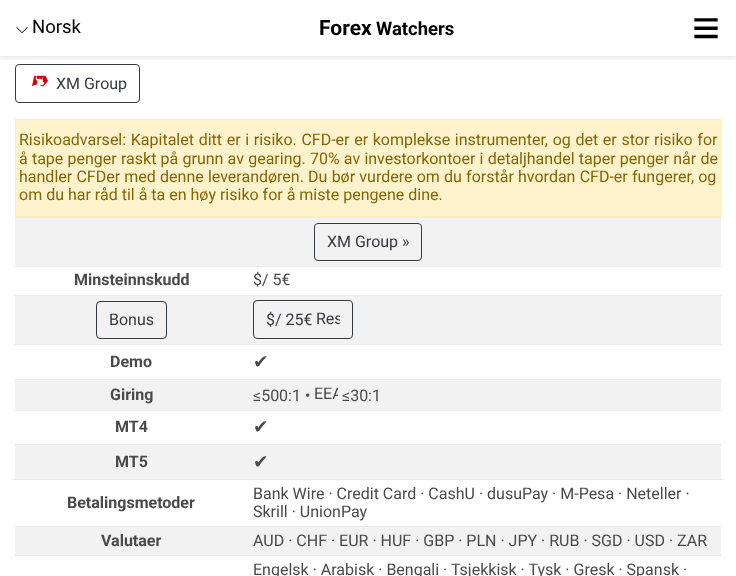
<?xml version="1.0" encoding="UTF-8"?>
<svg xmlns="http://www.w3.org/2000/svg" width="736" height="576">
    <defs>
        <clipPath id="clip1"><rect x="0" y="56" width="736" height="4"/></clipPath>
        <filter id="blur1" x="-50%" y="-200%" width="200%" height="500%"><feGaussianBlur stdDeviation="2.5"/></filter>
        <clipPath id="clip2"><rect x="316" y="309" width="24" height="16" rx="3"/></clipPath>
        <clipPath id="clip3"><rect x="314" y="385" width="24" height="16" rx="3"/></clipPath>
    </defs>
    <rect width="100%" height="100%" fill="#FFFFFF"/>
    <rect x="15.5" y="64.5" width="124" height="38" rx="3.5" fill="none" stroke="#343A40"/>
    <g clip-path="url(#clip1)">
        <rect x="-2" y="-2" width="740" height="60" fill="#000000" fill-opacity="0.1" filter="url(#blur1)"/>
    </g>
    <text x="16" y="33" font-family="FreeSerif" font-size="16" fill="#000000">⌵</text>
    <text x="32" y="33" font-family="Roboto" font-size="18.5" fill="#000000">Norsk</text>
    <text x="319" y="35" font-family="Roboto" font-size="21" font-weight="700" fill="#000000">Forex</text>
    <text x="376" y="35" font-family="Roboto" font-size="18.5" font-weight="700" fill="#000000">Watchers</text>
    <text x="692" y="44" font-family="Liberation Sans" font-size="48" fill="#000000">≡</text>
    <image x="32" y="75" width="16" height="12" href="img_01.png"/>
    <text x="56" y="89" font-family="Roboto" font-size="16" fill="#343A40">XM Group</text>
    <rect x="15.5" y="119.5" width="705" height="97" fill="#FFF3CD" stroke="#FFEEBA"/>
    <text font-family="Roboto" font-size="16" fill="#856404">
        <tspan x="19" y="145" word-spacing="0.7">Risikoadvarsel: Kapitalet ditt er i risiko. CFD-er er komplekse instrumenter, og det er stor risiko for</tspan>
        <tspan x="19" y="164" word-spacing="0.25">å tape penger raskt på grunn av gearing. 70% av investorkontoer i detaljhandel taper penger når de</tspan>
        <tspan x="19" y="182" word-spacing="0.25">handler CFDer med denne leverandøren. Du bør vurdere om du forstår hvordan CFD-er fungerer, og</tspan>
        <tspan x="19" y="200">om du har råd til å ta en høy risiko for å miste pengene dine.</tspan>
    </text>
    <rect x="15" y="218" width="706" height="48" fill="#F2F2F2"/>
    <rect x="14" y="217" width="708" height="1" fill="#E9ECEF"/>
    <rect x="314.5" y="223.5" width="107" height="37" rx="3.5" fill="none" stroke="#343A40"/>
    <text x="327" y="247" font-family="Roboto" font-size="16" fill="#343A40">XM Group »</text>
    <text x="74" y="285" font-family="Roboto" font-size="16" font-weight="700" fill="#4A4A4A">Minsteinnskudd</text>
    <rect x="14" y="266" width="708" height="1" fill="#E9ECEF"/>
    <text x="253" y="285" font-family="Roboto" font-size="16" fill="#4A4A4A">$/ 5€</text>
    <rect x="15" y="296" width="706" height="48" fill="#F2F2F2"/>
    <rect x="96.5" y="301.5" width="70" height="37" rx="3.5" fill="none" stroke="#343A40"/>
    <text x="109" y="325" font-family="Roboto" font-size="16" fill="#343A40">Bonus</text>
    <rect x="14" y="295" width="708" height="1" fill="#E9ECEF"/>
    <rect x="253.5" y="300.5" width="99" height="38" rx="3.5" fill="none" stroke="#343A40"/>
    <text x="266" y="325" font-family="Roboto" font-size="16" fill="#343A40">$/ 25€</text>
    <g clip-path="url(#clip2)">
        <text x="316" y="324" font-family="Roboto" font-size="16" fill="#343A40">Res</text>
    </g>
    <text x="110" y="367" font-family="Roboto" font-size="16" font-weight="700" fill="#4A4A4A">Demo</text>
    <rect x="14" y="344" width="708" height="1" fill="#E9ECEF"/>
    <text x="253" y="368" font-family="DejaVu Sans" font-size="18.5" fill="#4A4A4A">✔</text>
    <rect x="15" y="380" width="706" height="30" fill="#F2F2F2"/>
    <text x="110" y="400" font-family="Roboto" font-size="16" font-weight="700" fill="#4A4A4A">Giring</text>
    <rect x="14" y="379" width="708" height="1" fill="#E9ECEF"/>
    <text x="253" y="401" font-family="Roboto" font-size="16" fill="#4A4A4A">≤500:1 •</text>
    <g clip-path="url(#clip3)">
        <text x="314" y="399" font-family="Roboto" font-size="16" fill="#4A4A4A">EEA</text>
    </g>
    <text x="342" y="401" font-family="Roboto" font-size="16" fill="#4A4A4A">≤30:1</text>
    <text x="115" y="432" font-family="Roboto" font-size="16" font-weight="700" fill="#4A4A4A">MT4</text>
    <rect x="14" y="410" width="708" height="1" fill="#E9ECEF"/>
    <text x="253" y="433" font-family="DejaVu Sans" font-size="18.5" fill="#4A4A4A">✔</text>
    <rect x="15" y="445" width="706" height="34" fill="#F2F2F2"/>
    <text x="115" y="467" font-family="Roboto" font-size="16" font-weight="700" fill="#4A4A4A">MT5</text>
    <rect x="14" y="444" width="708" height="1" fill="#E9ECEF"/>
    <text x="253" y="468" font-family="DejaVu Sans" font-size="18.5" fill="#4A4A4A">✔</text>
    <text x="67" y="508" font-family="Roboto" font-size="16" font-weight="700" fill="#4A4A4A">Betalingsmetoder</text>
    <rect x="14" y="479" width="708" height="1" fill="#E9ECEF"/>
    <text font-family="Roboto" font-size="16" fill="#4A4A4A">
        <tspan x="253" y="499">Bank Wire · Credit Card · CashU · dusuPay · M-Pesa · Neteller ·</tspan>
        <tspan x="253" y="517">Skrill · UnionPay</tspan>
    </text>
    <rect x="15" y="527" width="706" height="28" fill="#F2F2F2"/>
    <text x="101" y="546" font-family="Roboto" font-size="16" font-weight="700" fill="#4A4A4A">Valutaer</text>
    <rect x="14" y="526" width="708" height="1" fill="#E9ECEF"/>
    <text x="253" y="546" font-family="Roboto" font-size="16" fill="#4A4A4A">AUD · CHF · EUR · HUF · GBP · PLN · JPY · RUB · SGD · USD · ZAR</text>
    <rect x="14" y="555" width="708" height="1" fill="#E9ECEF"/>
    <text x="253" y="575" font-family="Roboto" font-size="16" fill="#4A4A4A">Engelsk · Arabisk · Bengali · Tsjekkisk · Tysk · Gresk · Spansk ·</text>
</svg>
